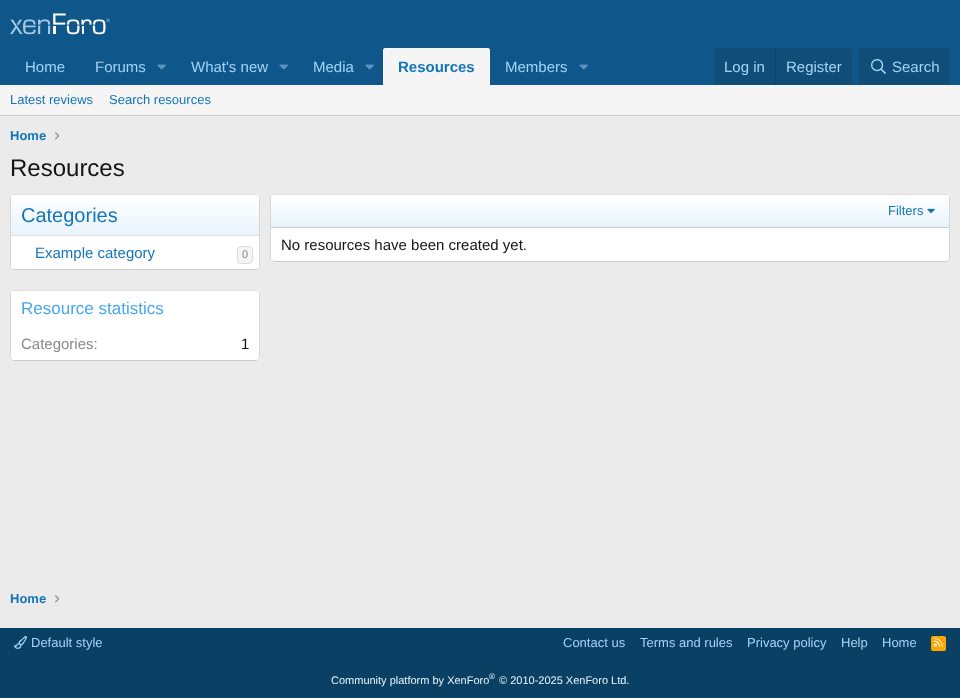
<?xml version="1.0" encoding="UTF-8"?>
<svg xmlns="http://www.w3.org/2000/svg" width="960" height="698">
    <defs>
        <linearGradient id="g1" gradientUnits="userSpaceOnUse" x1="135" y1="235" x2="135" y2="195"><stop offset="0" stop-color="#E8F4FC"/><stop offset="1" stop-color="#FFFFFF"/></linearGradient>
        <linearGradient id="g2" gradientUnits="userSpaceOnUse" x1="610" y1="227" x2="610" y2="195"><stop offset="0" stop-color="#E8F4FC"/><stop offset="1" stop-color="#FFFFFF"/></linearGradient>
    </defs>
    <rect width="100%" height="100%" fill="#EBEBEB"/>
    <rect x="0" y="0" width="960" height="85" fill="#0F578A"/>
    <image x="10" y="13" width="100" height="22" href="img_01.png"/>
    <text x="25" y="72" font-family="Liberation Sans" font-size="15" fill="#A3D4F5">Home</text>
    <text x="95" y="72" font-family="Liberation Sans" font-size="15" fill="#A3D4F5">Forums</text>
    <image x="157" y="64" width="9" height="6" href="img_02.png"/>
    <text x="191" y="72" font-family="Liberation Sans" font-size="15" fill="#A3D4F5">What's new</text>
    <image x="279" y="64" width="9" height="6" href="img_02.png"/>
    <text x="313" y="72" font-family="Liberation Sans" font-size="15" fill="#A3D4F5">Media</text>
    <image x="365" y="64" width="9" height="6" href="img_02.png"/>
    <path d="M 385 48 H 488 C 489 48 490 49 490 50 V 85 H 383 V 50 C 383 49 384 48 385 48 Z" fill="#F5F5F5"/>
    <text x="398" y="72" font-family="Liberation Sans" font-size="15" font-weight="700" fill="#1474B8">Resources</text>
    <text x="505" y="72" font-family="Liberation Sans" font-size="15" fill="#A3D4F5">Members</text>
    <image x="579" y="64" width="9" height="6" href="img_02.png"/>
    <path d="M 718 48 H 848 C 850 48 852 50 852 52 V 85 H 714 V 52 C 714 50 716 48 718 48 Z" fill="#104D78"/>
    <text x="724" y="72" font-family="Liberation Sans" font-size="15" fill="#A3D4F5">Log in</text>
    <rect x="775" y="48" width="1" height="37" fill="#114469"/>
    <text x="786" y="72" font-family="Liberation Sans" font-size="15" fill="#A3D4F5">Register</text>
    <path d="M 863 48 H 946 C 948 48 950 50 950 52 V 85 H 859 V 52 C 859 50 861 48 863 48 Z" fill="#104D78"/>
    <image x="871" y="59" width="15" height="15" href="img_03.png"/>
    <text x="892" y="72" font-family="Liberation Sans" font-size="15" fill="#A3D4F5">Search</text>
    <rect x="0" y="85" width="960" height="30" fill="#F5F5F5"/>
    <rect x="0" y="115" width="960" height="1" fill="#CCCCCC"/>
    <text x="10" y="104" font-family="Liberation Sans" font-size="13" fill="#1474B8">Latest reviews</text>
    <text x="109" y="104" font-family="Liberation Sans" font-size="13" fill="#1474B8">Search resources</text>
    <text x="10" y="140" font-family="Liberation Sans" font-size="13" font-weight="700" fill="#1474B8">Home</text>
    <image x="55" y="132" width="4" height="8" href="img_04.png"/>
    <text x="10" y="176" font-family="Liberation Sans" font-size="24" fill="#141414">Resources</text>
    <rect x="10" y="194" width="250" height="76" rx="4" fill="#FFFFFF"/>
    <path d="M 11.5 195.5 C 12 195 13 194.5 14 194.5 H 256 C 257 194.5 258 195 258.5 195.5" fill="none" stroke="#E0E0E0"/>
    <path d="M 258.5 195.5 L 259.5 197.5 V 266.5 L 258.5 268.5" fill="none" stroke="#D6D6D6"/>
    <path d="M 258.5 268.5 C 258 269 257 269.5 256 269.5 H 14 C 13 269.5 12 269 11.5 268.5" fill="none" stroke="#CCCCCC"/>
    <path d="M 11.5 268.5 L 10.5 266.5 V 197.5 L 11.5 195.5" fill="none" stroke="#D6D6D6"/>
    <path d="M 14 195 H 256 C 257.5 195 259 196.5 259 198 V 235 H 11 V 198 C 11 196.5 12.5 195 14 195 Z" fill="url(#g1)"/>
    <rect x="11" y="235" width="248" height="1" fill="#E0E0E0"/>
    <text x="21" y="222" font-family="Liberation Sans" font-size="20" fill="#1474B8">Categories</text>
    <text x="35" y="258" font-family="Liberation Sans" font-size="15" fill="#1474B8">Example category</text>
    <rect x="237.5" y="246.5" width="15" height="17" rx="3.5" fill="#F5F5F5" stroke="#DBDBDB"/>
    <text x="242" y="258" font-family="Liberation Sans" font-size="11" fill="#8A8A8A">0</text>
    <rect x="10" y="290" width="250" height="71" rx="4" fill="#FFFFFF"/>
    <path d="M 11.5 291.5 C 12 291 13 290.5 14 290.5 H 256 C 257 290.5 258 291 258.5 291.5" fill="none" stroke="#E0E0E0"/>
    <path d="M 258.5 291.5 L 259.5 293.5 V 357.5 L 258.5 359.5" fill="none" stroke="#D6D6D6"/>
    <path d="M 258.5 359.5 C 258 360 257 360.5 256 360.5 H 14 C 13 360.5 12 360 11.5 359.5" fill="none" stroke="#CCCCCC"/>
    <path d="M 11.5 359.5 L 10.5 357.5 V 293.5 L 11.5 291.5" fill="none" stroke="#D6D6D6"/>
    <text x="21" y="314" font-family="Liberation Sans" font-size="17" fill="#47A7EB">Resource statistics</text>
    <text x="21" y="349" font-family="Liberation Sans" font-size="15" fill="#8A8A8A">Categories:</text>
    <text x="241" y="349" font-family="Liberation Sans" font-size="15" fill="#141414">1</text>
    <rect x="270" y="194" width="680" height="68" rx="4" fill="#FFFFFF"/>
    <path d="M 271.5 195.5 L 274 194.5 H 946 L 948.5 195.5" fill="none" stroke="#E0E0E0"/>
    <path d="M 948.5 195.5 L 949.5 197.5 V 258.5 L 948.5 260.5" fill="none" stroke="#D6D6D6"/>
    <path d="M 948.5 260.5 L 946 261.5 H 274 L 271.5 260.5" fill="none" stroke="#CCCCCC"/>
    <path d="M 271.5 260.5 L 270.5 258.5 V 197.5 L 271.5 195.5" fill="none" stroke="#D6D6D6"/>
    <path d="M 274 195 H 946 C 947.5 195 949 196.5 949 198 V 227 H 271 V 198 C 271 196.5 272.5 195 274 195 Z" fill="url(#g2)"/>
    <rect x="271" y="227" width="678" height="1" fill="#CCCCCC"/>
    <text x="888" y="215" font-family="Liberation Sans" font-size="13" fill="#1474B8">Filters</text>
    <image x="927" y="208" width="8" height="6" href="img_05.png"/>
    <text x="281" y="250" font-family="Liberation Sans" font-size="15" fill="#141414">No resources have been created yet.</text>
    <text x="10" y="603" font-family="Liberation Sans" font-size="13" font-weight="700" fill="#1474B8">Home</text>
    <image x="55" y="595" width="4" height="8" href="img_04.png"/>
    <rect x="0" y="628" width="960" height="70" fill="#0B4065"/>
    <image x="14" y="636" width="13" height="13" href="img_06.png"/>
    <text x="31" y="647" font-family="Liberation Sans" font-size="13" fill="#A3D4F5">Default style</text>
    <text x="563" y="647" font-family="Liberation Sans" font-size="13" fill="#A3D4F5">Contact us</text>
    <text x="640" y="647" font-family="Liberation Sans" font-size="13" fill="#A3D4F5">Terms and rules</text>
    <text x="747" y="647" font-family="Liberation Sans" font-size="13" fill="#A3D4F5">Privacy policy</text>
    <text x="841" y="647" font-family="Liberation Sans" font-size="13" fill="#A3D4F5">Help</text>
    <text x="882" y="647" font-family="Liberation Sans" font-size="13" fill="#A3D4F5">Home</text>
    <rect x="931" y="636" width="15" height="15" rx="2" fill="#FFA500"/>
    <image x="933" y="637" width="10" height="10" href="img_07.png"/>
    <text x="331" y="684" font-family="Liberation Sans" font-size="11" fill="#E8F4FC">Community platform by XenForo</text>
    <text x="489" y="679" font-family="Liberation Sans" font-size="8" fill="#E8F4FC">®</text>
    <text x="499" y="684" font-family="Liberation Sans" font-size="11" fill="#E8F4FC">© 2010-2025 XenForo Ltd.</text>
</svg>
